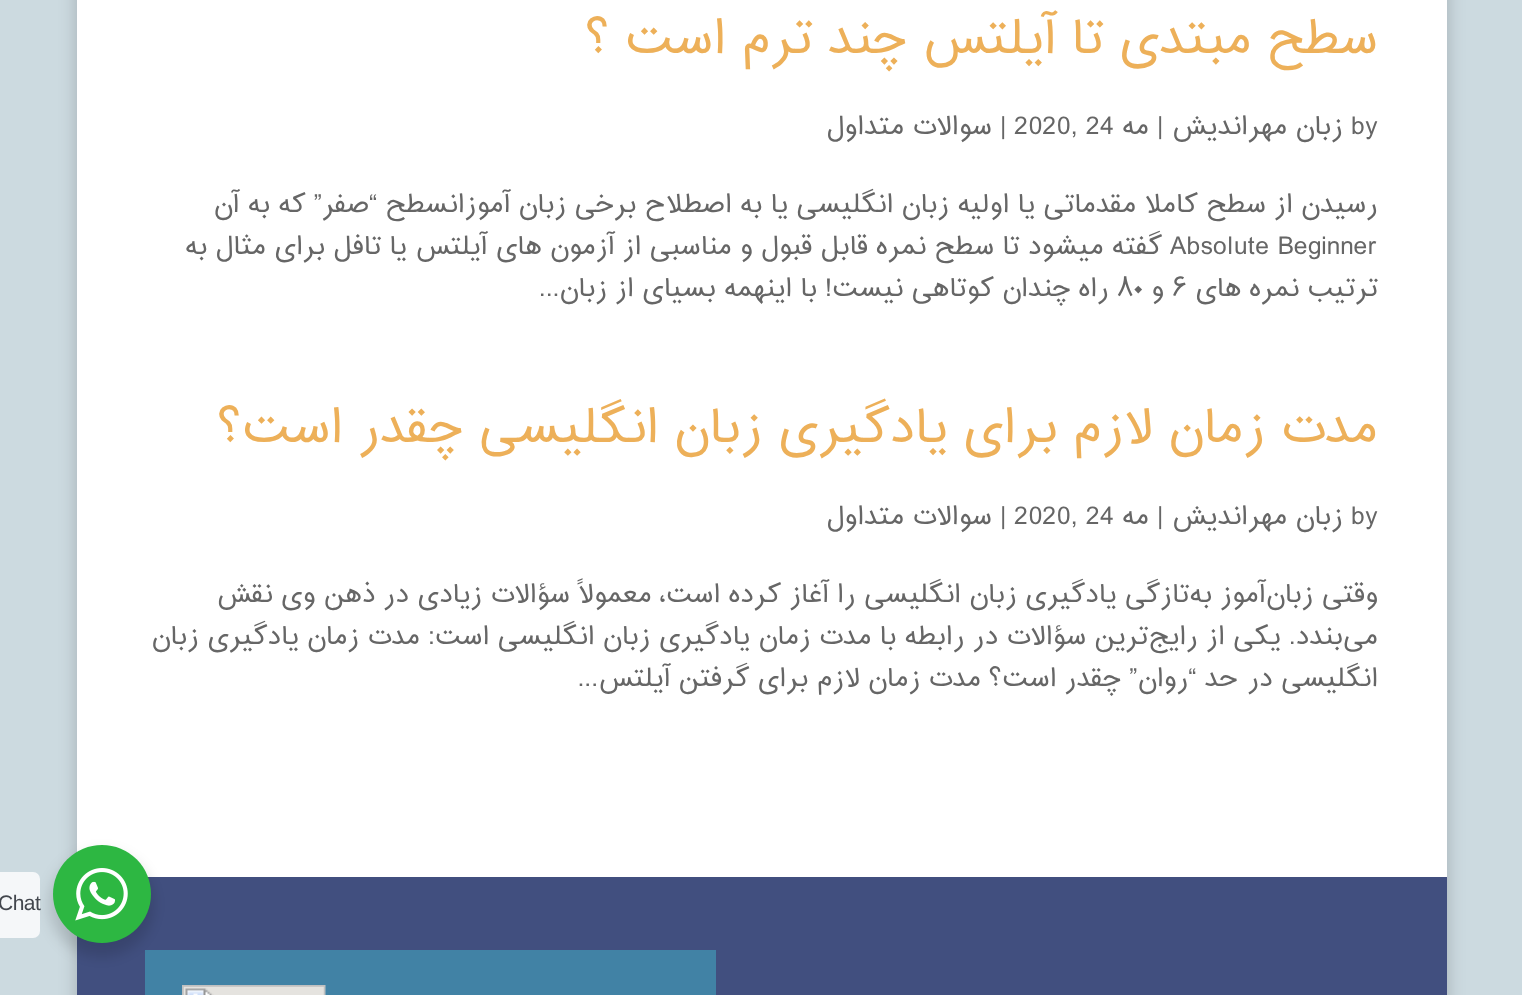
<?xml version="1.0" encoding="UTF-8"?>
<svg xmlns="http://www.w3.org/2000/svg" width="1522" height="995">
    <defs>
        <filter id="blur1" x="-50%" y="-200%" width="200%" height="500%"><feGaussianBlur stdDeviation="9"/></filter>
        <filter id="blur2" x="-50%" y="-200%" width="200%" height="500%"><feGaussianBlur stdDeviation="7"/></filter>
    </defs>
    <rect width="100%" height="100%" fill="#CCDAE0"/>
    <rect x="77" y="-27" width="1370" height="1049" fill="#000000" fill-opacity="0.2" filter="url(#blur1)"/>
    <rect x="77" y="0" width="1370" height="877" fill="#FFFFFF"/>
    <text x="1378" y="53" font-family="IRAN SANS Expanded" font-size="45.5" direction="rtl" fill="#EDB059">سطح مبتدی تا آیلتس چند ترم است ؟</text>
    <text x="1351" y="134" font-family="IRAN SANS Expanded" font-size="24.5" fill="#666666">by</text>
    <text x="1343" y="134" font-family="IRAN SANS Expanded" font-size="24.5" direction="rtl" fill="#666666">زبان مهراندیش</text>
    <text x="1157" y="134" font-family="IRAN SANS Expanded" font-size="24.5" fill="#666666">|</text>
    <text x="1149" y="134" font-family="IRAN SANS Expanded" font-size="24.5" direction="rtl" fill="#666666">مه</text>
    <text x="1014" y="134" font-family="IRAN SANS Expanded" font-size="24.5" fill="#666666">2020, 24</text>
    <text x="1000" y="134" font-family="IRAN SANS Expanded" font-size="24.5" fill="#666666">|</text>
    <text x="992" y="134" font-family="IRAN SANS Expanded" font-size="24.5" direction="rtl" fill="#666666">سوالات متداول</text>
    <text x="1378" y="212" font-family="IRAN SANS Expanded" font-size="24.5" direction="rtl" fill="#666666">رسیدن از سطح کاملا مقدماتی یا اولیه زبان انگلیسی یا به اصطلاح برخی زبان آموزانسطح “صفر” که به آن</text>
    <text x="1170" y="254" font-family="IRAN SANS Expanded" font-size="24.5" fill="#666666">Absolute Beginner</text>
    <text x="1162" y="254" font-family="IRAN SANS Expanded" font-size="24.5" direction="rtl" fill="#666666">گفته میشود تا سطح نمره قابل قبول و مناسبی از آزمون های آیلتس یا تافل برای مثال به</text>
    <text x="1378" y="296" font-family="IRAN SANS Expanded" font-size="24.5" direction="rtl" fill="#666666">ترتیب نمره های</text>
    <text x="1173" y="296" font-family="IRAN SANS Expanded" font-size="24.5" fill="#666666">۶</text>
    <text x="1164" y="296" font-family="IRAN SANS Expanded" font-size="24.5" direction="rtl" fill="#666666">و</text>
    <text x="1117" y="296" font-family="IRAN SANS Expanded" font-size="24.5" fill="#666666">۸۰</text>
    <text x="1109" y="296" font-family="IRAN SANS Expanded" font-size="24.5" direction="rtl" fill="#666666">راه چندان کوتاهی نیست! با اینهمه بسیای از زبان...</text>
    <text x="1378" y="442" font-family="IRAN SANS Expanded" font-size="45.5" direction="rtl" fill="#EDB059">مدت زمان لازم برای یادگیری زبان انگلیسی چقدر است؟</text>
    <text x="1351" y="524" font-family="IRAN SANS Expanded" font-size="24.5" fill="#666666">by</text>
    <text x="1343" y="524" font-family="IRAN SANS Expanded" font-size="24.5" direction="rtl" fill="#666666">زبان مهراندیش</text>
    <text x="1157" y="524" font-family="IRAN SANS Expanded" font-size="24.5" fill="#666666">|</text>
    <text x="1149" y="524" font-family="IRAN SANS Expanded" font-size="24.5" direction="rtl" fill="#666666">مه</text>
    <text x="1014" y="524" font-family="IRAN SANS Expanded" font-size="24.5" fill="#666666">2020, 24</text>
    <text x="1000" y="524" font-family="IRAN SANS Expanded" font-size="24.5" fill="#666666">|</text>
    <text x="992" y="524" font-family="IRAN SANS Expanded" font-size="24.5" direction="rtl" fill="#666666">سوالات متداول</text>
    <text font-family="IRAN SANS Expanded" font-size="24.5" direction="rtl" fill="#666666">
        <tspan x="1378" y="602">وقتی زبان‌آموز به‌تازگی یادگیری زبان انگلیسی را آغاز کرده است، معمولاً سؤالات زیادی در ذهن وی نقش</tspan>
        <tspan x="1378" y="644">می‌بندد. یکی از رایج‌ترین سؤالات در رابطه با مدت زمان یادگیری زبان انگلیسی است: مدت زمان یادگیری زبان</tspan>
        <tspan x="1378" y="686">انگلیسی در حد “روان” چقدر است؟ مدت زمان لازم برای گرفتن آیلتس...</tspan>
    </text>
    <rect x="77" y="877" width="1370" height="118" fill="#414F7F"/>
    <rect x="145" y="950" width="571" height="45" fill="#4182A5"/>
    <image x="182" y="985" width="144" height="10" href="img_01.png"/>
    <rect x="49" y="852" width="105" height="105" rx="52.5" fill="#000000" fill-opacity="0.14" filter="url(#blur2)"/>
    <circle cx="102" cy="894" r="49" fill="#2DB742"/>
    <image x="75" y="868" width="53" height="53" href="img_02.png"/>
    <rect x="-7" y="872" width="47" height="66" rx="7" fill="#F5F7F9"/>
    <text x="-2" y="910" font-family="Liberation Sans" font-size="21" letter-spacing="-0.5" fill="#43474E">Chat</text>
</svg>
